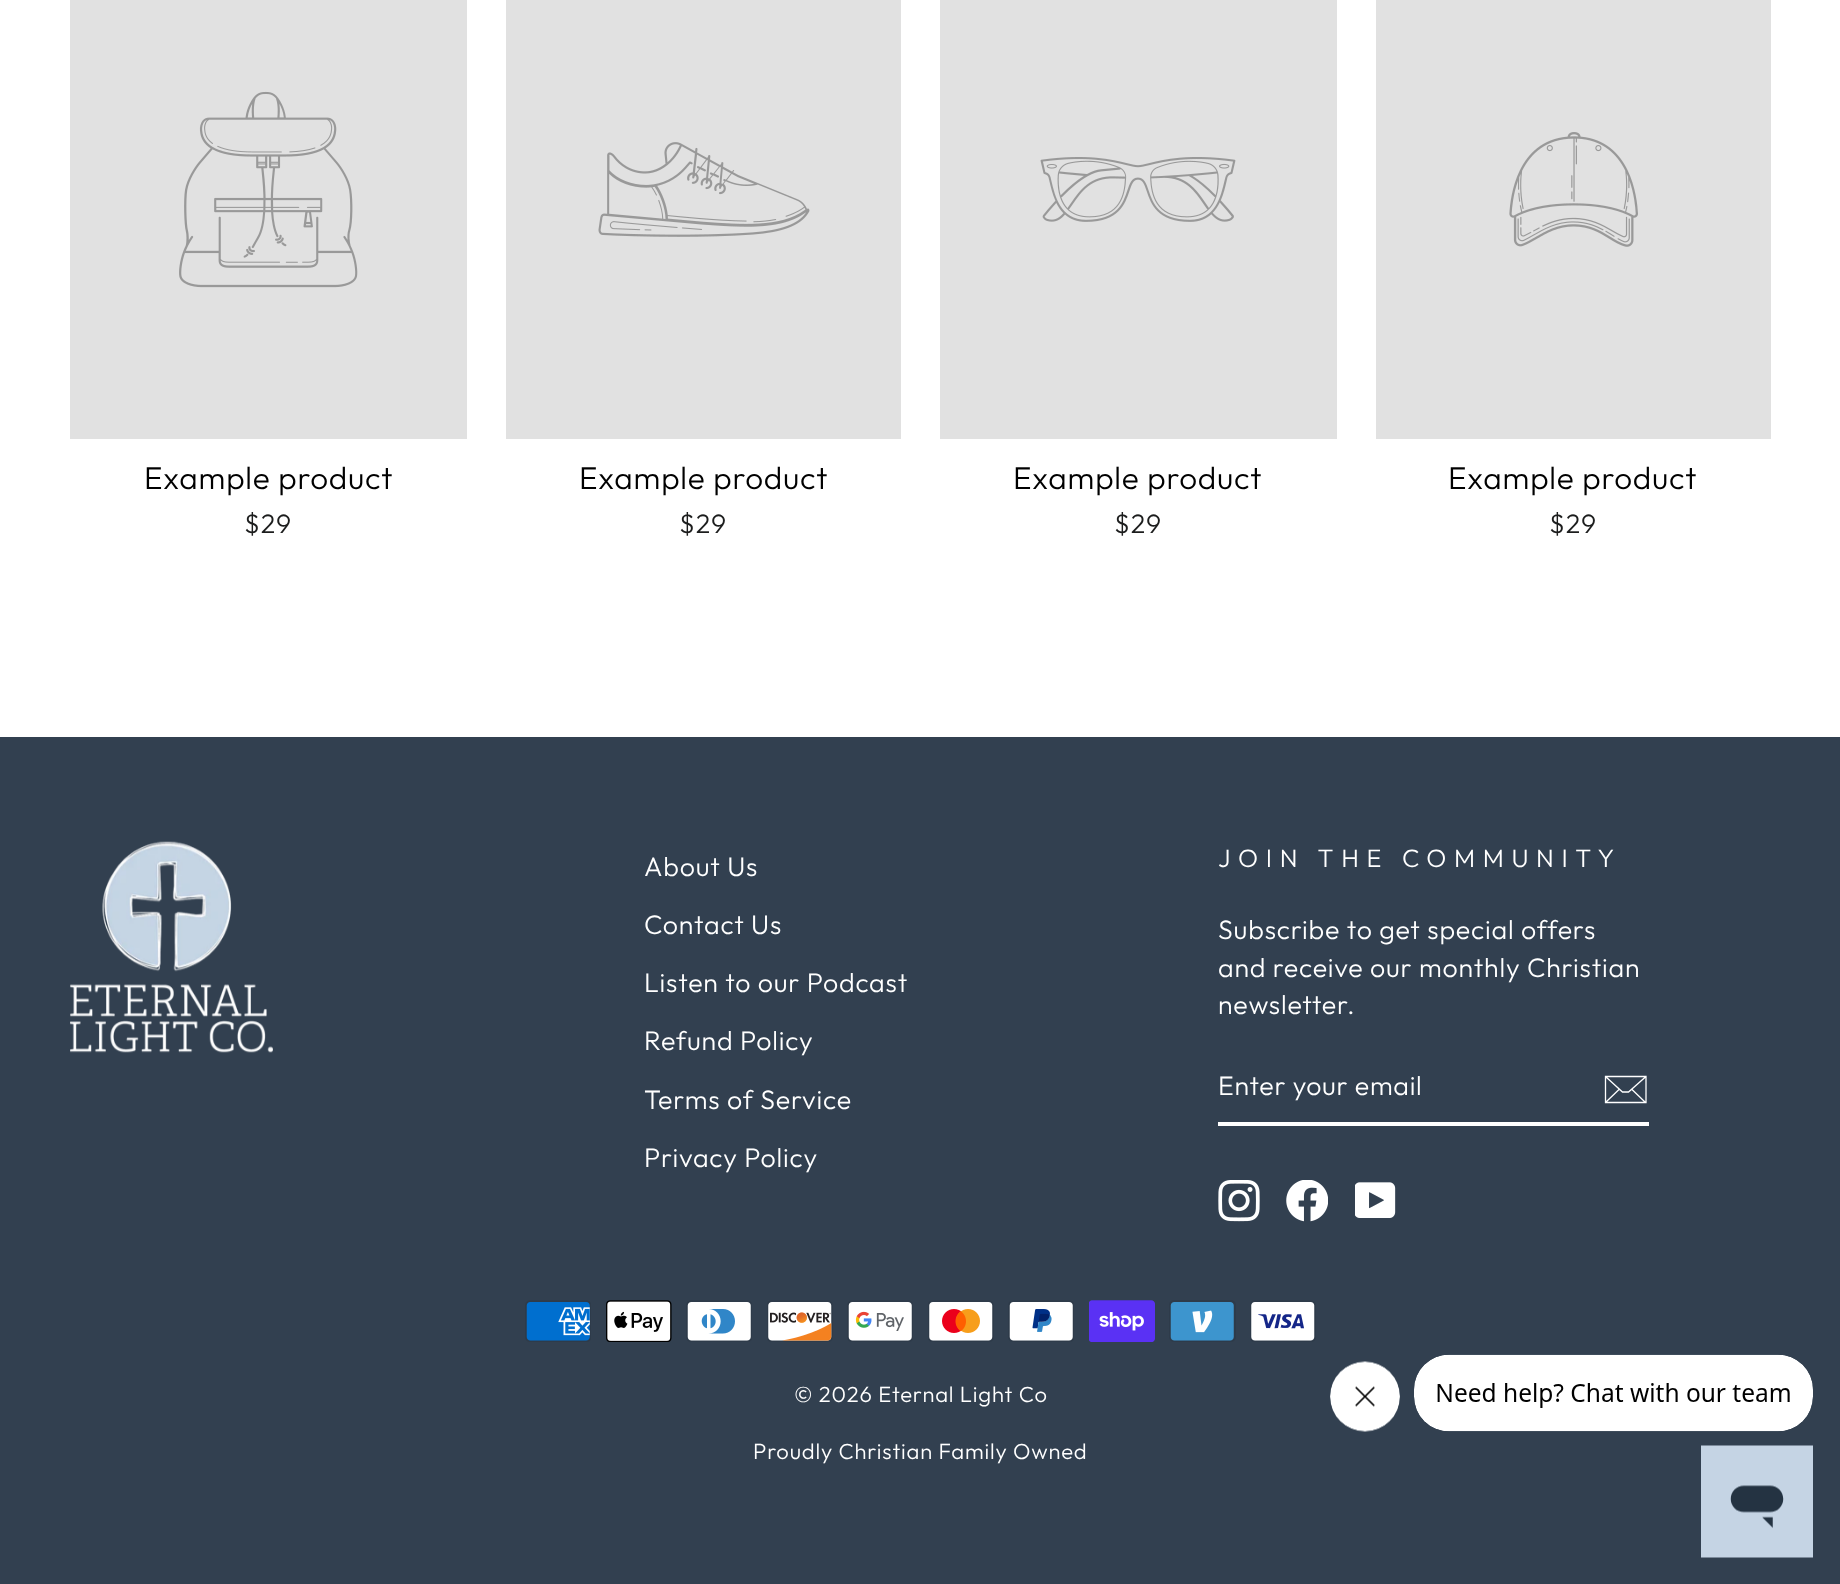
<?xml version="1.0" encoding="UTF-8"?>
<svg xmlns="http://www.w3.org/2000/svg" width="1840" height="1584">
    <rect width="100%" height="100%" fill="#FFFFFF"/>
    <rect x="70" y="0" width="397" height="439" fill="#E1E1E1"/>
    <image x="179" y="91" width="179" height="197" href="img_01.png"/>
    <text x="144" y="489" font-family="Outfit" font-size="31.5" font-weight="300" letter-spacing="0.8" fill="#000000">Example product</text>
    <text x="244" y="533" font-family="Outfit" font-size="26.75" font-weight="300" letter-spacing="0.8" fill="#1C1D1D">$29</text>
    <rect x="506" y="0" width="395" height="439" fill="#E1E1E1"/>
    <image x="598" y="142" width="212" height="95" href="img_02.png"/>
    <text x="579" y="489" font-family="Outfit" font-size="31.5" font-weight="300" letter-spacing="0.8" fill="#000000">Example product</text>
    <text x="679" y="533" font-family="Outfit" font-size="26.75" font-weight="300" letter-spacing="0.8" fill="#1C1D1D">$29</text>
    <rect x="940" y="0" width="397" height="439" fill="#E1E1E1"/>
    <image x="1040" y="157" width="196" height="65" href="img_03.png"/>
    <text x="1013" y="489" font-family="Outfit" font-size="31.5" font-weight="300" letter-spacing="0.8" fill="#000000">Example product</text>
    <text x="1114" y="533" font-family="Outfit" font-size="26.75" font-weight="300" letter-spacing="0.8" fill="#1C1D1D">$29</text>
    <rect x="1376" y="0" width="395" height="439" fill="#E1E1E1"/>
    <image x="1509" y="132" width="129" height="115" href="img_04.png"/>
    <text x="1448" y="489" font-family="Outfit" font-size="31.5" font-weight="300" letter-spacing="0.8" fill="#000000">Example product</text>
    <text x="1549" y="533" font-family="Outfit" font-size="26.75" font-weight="300" letter-spacing="0.8" fill="#1C1D1D">$29</text>
    <rect x="0" y="737" width="1840" height="847" fill="#324050"/>
    <image x="70" y="841" width="203" height="212" href="img_05.png"/>
    <text x="644" y="876" font-family="Outfit" font-size="26.75" font-weight="300" letter-spacing="0.8" fill="#FFFFFF">About Us</text>
    <text x="644" y="934" font-family="Outfit" font-size="26.75" font-weight="300" letter-spacing="0.8" fill="#FFFFFF">Contact Us</text>
    <text x="644" y="992" font-family="Outfit" font-size="26.75" font-weight="300" letter-spacing="0.8" fill="#FFFFFF">Listen to our Podcast</text>
    <text x="644" y="1050" font-family="Outfit" font-size="26.75" font-weight="300" letter-spacing="0.8" fill="#FFFFFF">Refund Policy</text>
    <text x="644" y="1109" font-family="Outfit" font-size="26.75" font-weight="300" letter-spacing="0.8" fill="#FFFFFF">Terms of Service</text>
    <text x="644" y="1167" font-family="Outfit" font-size="26.75" font-weight="300" letter-spacing="0.8" fill="#FFFFFF">Privacy Policy</text>
    <text x="1218" y="867" font-family="Outfit" font-size="25.25" font-weight="300" letter-spacing="7.6" fill="#FFFFFF">JOIN THE COMMUNITY</text>
    <text font-family="Outfit" font-size="26.75" font-weight="300" letter-spacing="0.8" fill="#FFFFFF">
        <tspan x="1218" y="939">Subscribe to get special offers</tspan>
        <tspan x="1218" y="977">and receive our monthly Christian</tspan>
        <tspan x="1218" y="1014">newsletter.</tspan>
    </text>
    <rect x="1218" y="1122" width="431" height="4" fill="#FFFFFF"/>
    <text x="1218" y="1095" font-family="Outfit" font-size="26.75" font-weight="300" letter-spacing="0.7" fill="#FFFFFF">Enter your email</text>
    <path d="M 1646 1102.5 H 1605.5 V 1076.5 H 1646 Z M 1605.5 1076.5 L 1622.5 1092 H 1628.5 L 1646 1076.5 M 1619 1089.5 L 1606 1102 M 1645.5 1102.5 L 1632 1089.5" fill="none" stroke="#FFFFFF" stroke-width="1.3"/>
    <image x="1218" y="1180" width="42" height="42" href="img_06.png"/>
    <image x="1286" y="1180" width="42" height="42" href="img_07.png"/>
    <image x="1355" y="1182" width="41" height="36" href="img_08.png"/>
    <image x="525" y="1300" width="66" height="42" href="img_09.png"/>
    <image x="606" y="1300" width="66" height="42" href="img_10.png"/>
    <image x="686" y="1300" width="66" height="42" href="img_11.png"/>
    <image x="767" y="1300" width="66" height="42" href="img_12.png"/>
    <image x="847" y="1300" width="66" height="42" href="img_13.png"/>
    <image x="928" y="1300" width="66" height="42" href="img_14.png"/>
    <image x="1008" y="1300" width="66" height="42" href="img_15.png"/>
    <image x="1089" y="1300" width="66" height="42" href="img_16.png"/>
    <image x="1169" y="1300" width="67" height="42" href="img_17.png"/>
    <image x="1250" y="1300" width="66" height="42" href="img_18.png"/>
    <text x="794" y="1402" font-family="Outfit" font-size="22" font-weight="300" letter-spacing="0.8" fill="#FFFFFF">© 2026 Eternal Light Co</text>
    <text x="753" y="1459" font-family="Outfit" font-size="22" font-weight="300" letter-spacing="0.8" fill="#FFFFFF">Proudly Christian Family Owned</text>
    <image x="1330" y="1361" width="70" height="71" href="img_19.png"/>
    <image x="1414" y="1354" width="399" height="78" href="img_20.png"/>
    <image x="1701" y="1445" width="112" height="113" href="img_21.png"/>
</svg>
